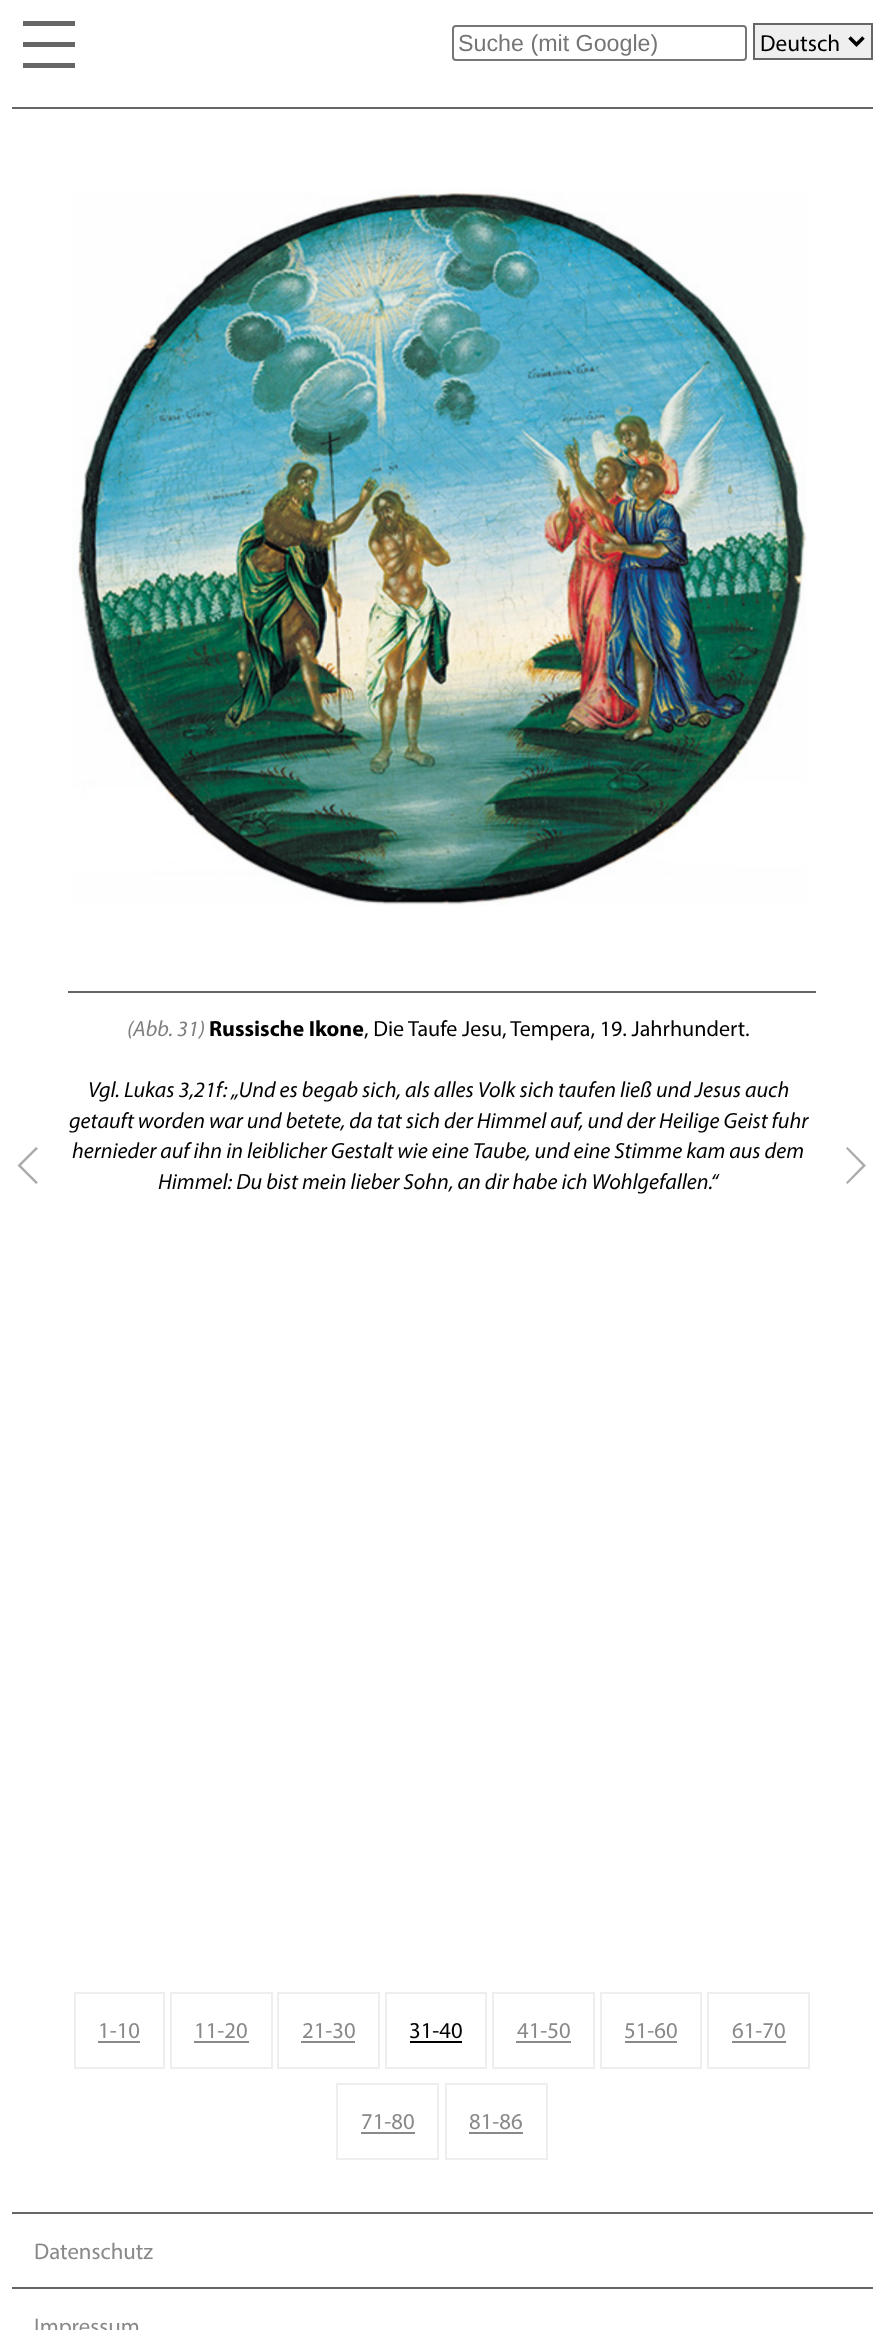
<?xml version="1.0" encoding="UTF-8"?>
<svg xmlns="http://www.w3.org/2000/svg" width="883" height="2330">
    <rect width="100%" height="100%" fill="#FFFFFF"/>
    <rect x="23" y="21" width="52" height="5" fill="#666666"/>
    <rect x="23" y="42" width="52" height="5" fill="#666666"/>
    <rect x="23" y="63" width="52" height="5" fill="#666666"/>
    <rect x="12" y="107" width="861" height="2" fill="#666666"/>
    <rect x="453" y="26" width="293" height="34" rx="3" fill="none" stroke="#767676" stroke-width="2"/>
    <text x="458" y="51" font-family="Liberation Sans" font-size="23.25" fill="#757575">Suche (mit Google)</text>
    <rect x="754" y="24" width="118" height="35" fill="#EFEFEF" stroke="#666666" stroke-width="2"/>
    <path d="M 849.5 37.5 L 856.5 44.5 L 863.5 37.5" fill="none" stroke="#000000" stroke-width="3.5"/>
    <text x="760" y="51" font-family="Myriad" font-size="23.25" fill="#000000">Deutsch</text>
    <path d="M 17.5 1165.5 L 36 1147 L 38 1148.5 L 21 1165.5 L 38 1182.5 L 36 1184 Z" fill="#ABABAB"/>
    <image x="72" y="189" width="735" height="717" href="img_01.png"/>
    <rect x="68" y="991" width="748" height="2" fill="#666666"/>
    <text x="127" y="1036" font-family="Myriad" font-size="22.05" font-style="italic" fill="#808080">(Abb. 31)</text>
    <text x="209" y="1036" font-family="Myriad" font-size="22.05" font-weight="700" fill="#000000">Russische Ikone</text>
    <text x="364" y="1036" font-family="Myriad" font-size="22.05" fill="#000000">, Die Taufe Jesu, Tempera, 19. Jahrhundert.</text>
    <text x="88" y="1097" font-family="Myriad" font-size="22.05" font-style="italic" fill="#000000">Vgl. Lukas 3,21f: „Und es begab sich, als alles Volk sich taufen ließ und Jesus auch</text>
    <text x="69" y="1128" font-family="Myriad" font-size="22.05" font-style="italic" fill="#000000">getauft worden war und betete, da tat sich der Himmel auf, und der Heilige Geist fuhr</text>
    <text x="72" y="1158" font-family="Myriad" font-size="22.05" font-style="italic" fill="#000000">hernieder auf ihn in leiblicher Gestalt wie eine Taube, und eine Stimme kam aus dem</text>
    <text x="158" y="1189" font-family="Myriad" font-size="22.05" font-style="italic" fill="#000000">Himmel: Du bist mein lieber Sohn, an dir habe ich Wohlgefallen.“</text>
    <path d="M 866 1165.5 L 847.5 1184 L 846 1182.5 L 862.5 1165.5 L 846 1148.5 L 847.5 1147 Z" fill="#ABABAB"/>
    <rect x="75" y="1993" width="89" height="75" fill="none" stroke="#EEEEEE" stroke-width="2"/>
    <text x="98" y="2038" font-family="Myriad" font-size="22.75" fill="#898989">1-10</text>
    <rect x="98" y="2041" width="42" height="2" fill="#898989"/>
    <rect x="171" y="1993" width="101" height="75" fill="none" stroke="#EEEEEE" stroke-width="2"/>
    <text x="194" y="2038" font-family="Myriad" font-size="22.75" fill="#898989">11-20</text>
    <rect x="194" y="2041" width="55" height="2" fill="#898989"/>
    <rect x="278" y="1993" width="101" height="75" fill="none" stroke="#EEEEEE" stroke-width="2"/>
    <text x="302" y="2038" font-family="Myriad" font-size="22.75" fill="#898989">21-30</text>
    <rect x="301" y="2041" width="54" height="2" fill="#898989"/>
    <rect x="386" y="1993" width="100" height="75" fill="none" stroke="#EEEEEE" stroke-width="2"/>
    <text x="409" y="2038" font-family="Myriad" font-size="22.75" fill="#000000">31-40</text>
    <rect x="410" y="2041" width="52" height="2" fill="#000000"/>
    <rect x="493" y="1993" width="101" height="75" fill="none" stroke="#EEEEEE" stroke-width="2"/>
    <text x="517" y="2038" font-family="Myriad" font-size="22.75" fill="#898989">41-50</text>
    <rect x="516" y="2041" width="55" height="2" fill="#898989"/>
    <rect x="601" y="1993" width="100" height="75" fill="none" stroke="#EEEEEE" stroke-width="2"/>
    <text x="624" y="2038" font-family="Myriad" font-size="22.75" fill="#898989">51-60</text>
    <rect x="625" y="2041" width="52" height="2" fill="#898989"/>
    <rect x="708" y="1993" width="101" height="75" fill="none" stroke="#EEEEEE" stroke-width="2"/>
    <text x="732" y="2038" font-family="Myriad" font-size="22.75" fill="#898989">61-70</text>
    <rect x="732" y="2041" width="54" height="2" fill="#898989"/>
    <rect x="337" y="2084" width="101" height="75" fill="none" stroke="#EEEEEE" stroke-width="2"/>
    <text x="361" y="2129" font-family="Myriad" font-size="22.75" fill="#898989">71-80</text>
    <rect x="361" y="2132" width="54" height="2" fill="#898989"/>
    <rect x="446" y="2084" width="101" height="75" fill="none" stroke="#EEEEEE" stroke-width="2"/>
    <text x="469" y="2129" font-family="Myriad" font-size="22.75" fill="#898989">81-86</text>
    <rect x="469" y="2132" width="54" height="2" fill="#898989"/>
    <rect x="12" y="2212" width="861" height="2" fill="#666666"/>
    <text x="34" y="2259" font-family="Myriad" font-size="22.75" fill="#898989">Datenschutz</text>
    <rect x="12" y="2287" width="861" height="2" fill="#666666"/>
    <text x="34" y="2334" font-family="Myriad" font-size="22.75" fill="#898989">Impressum</text>
</svg>
